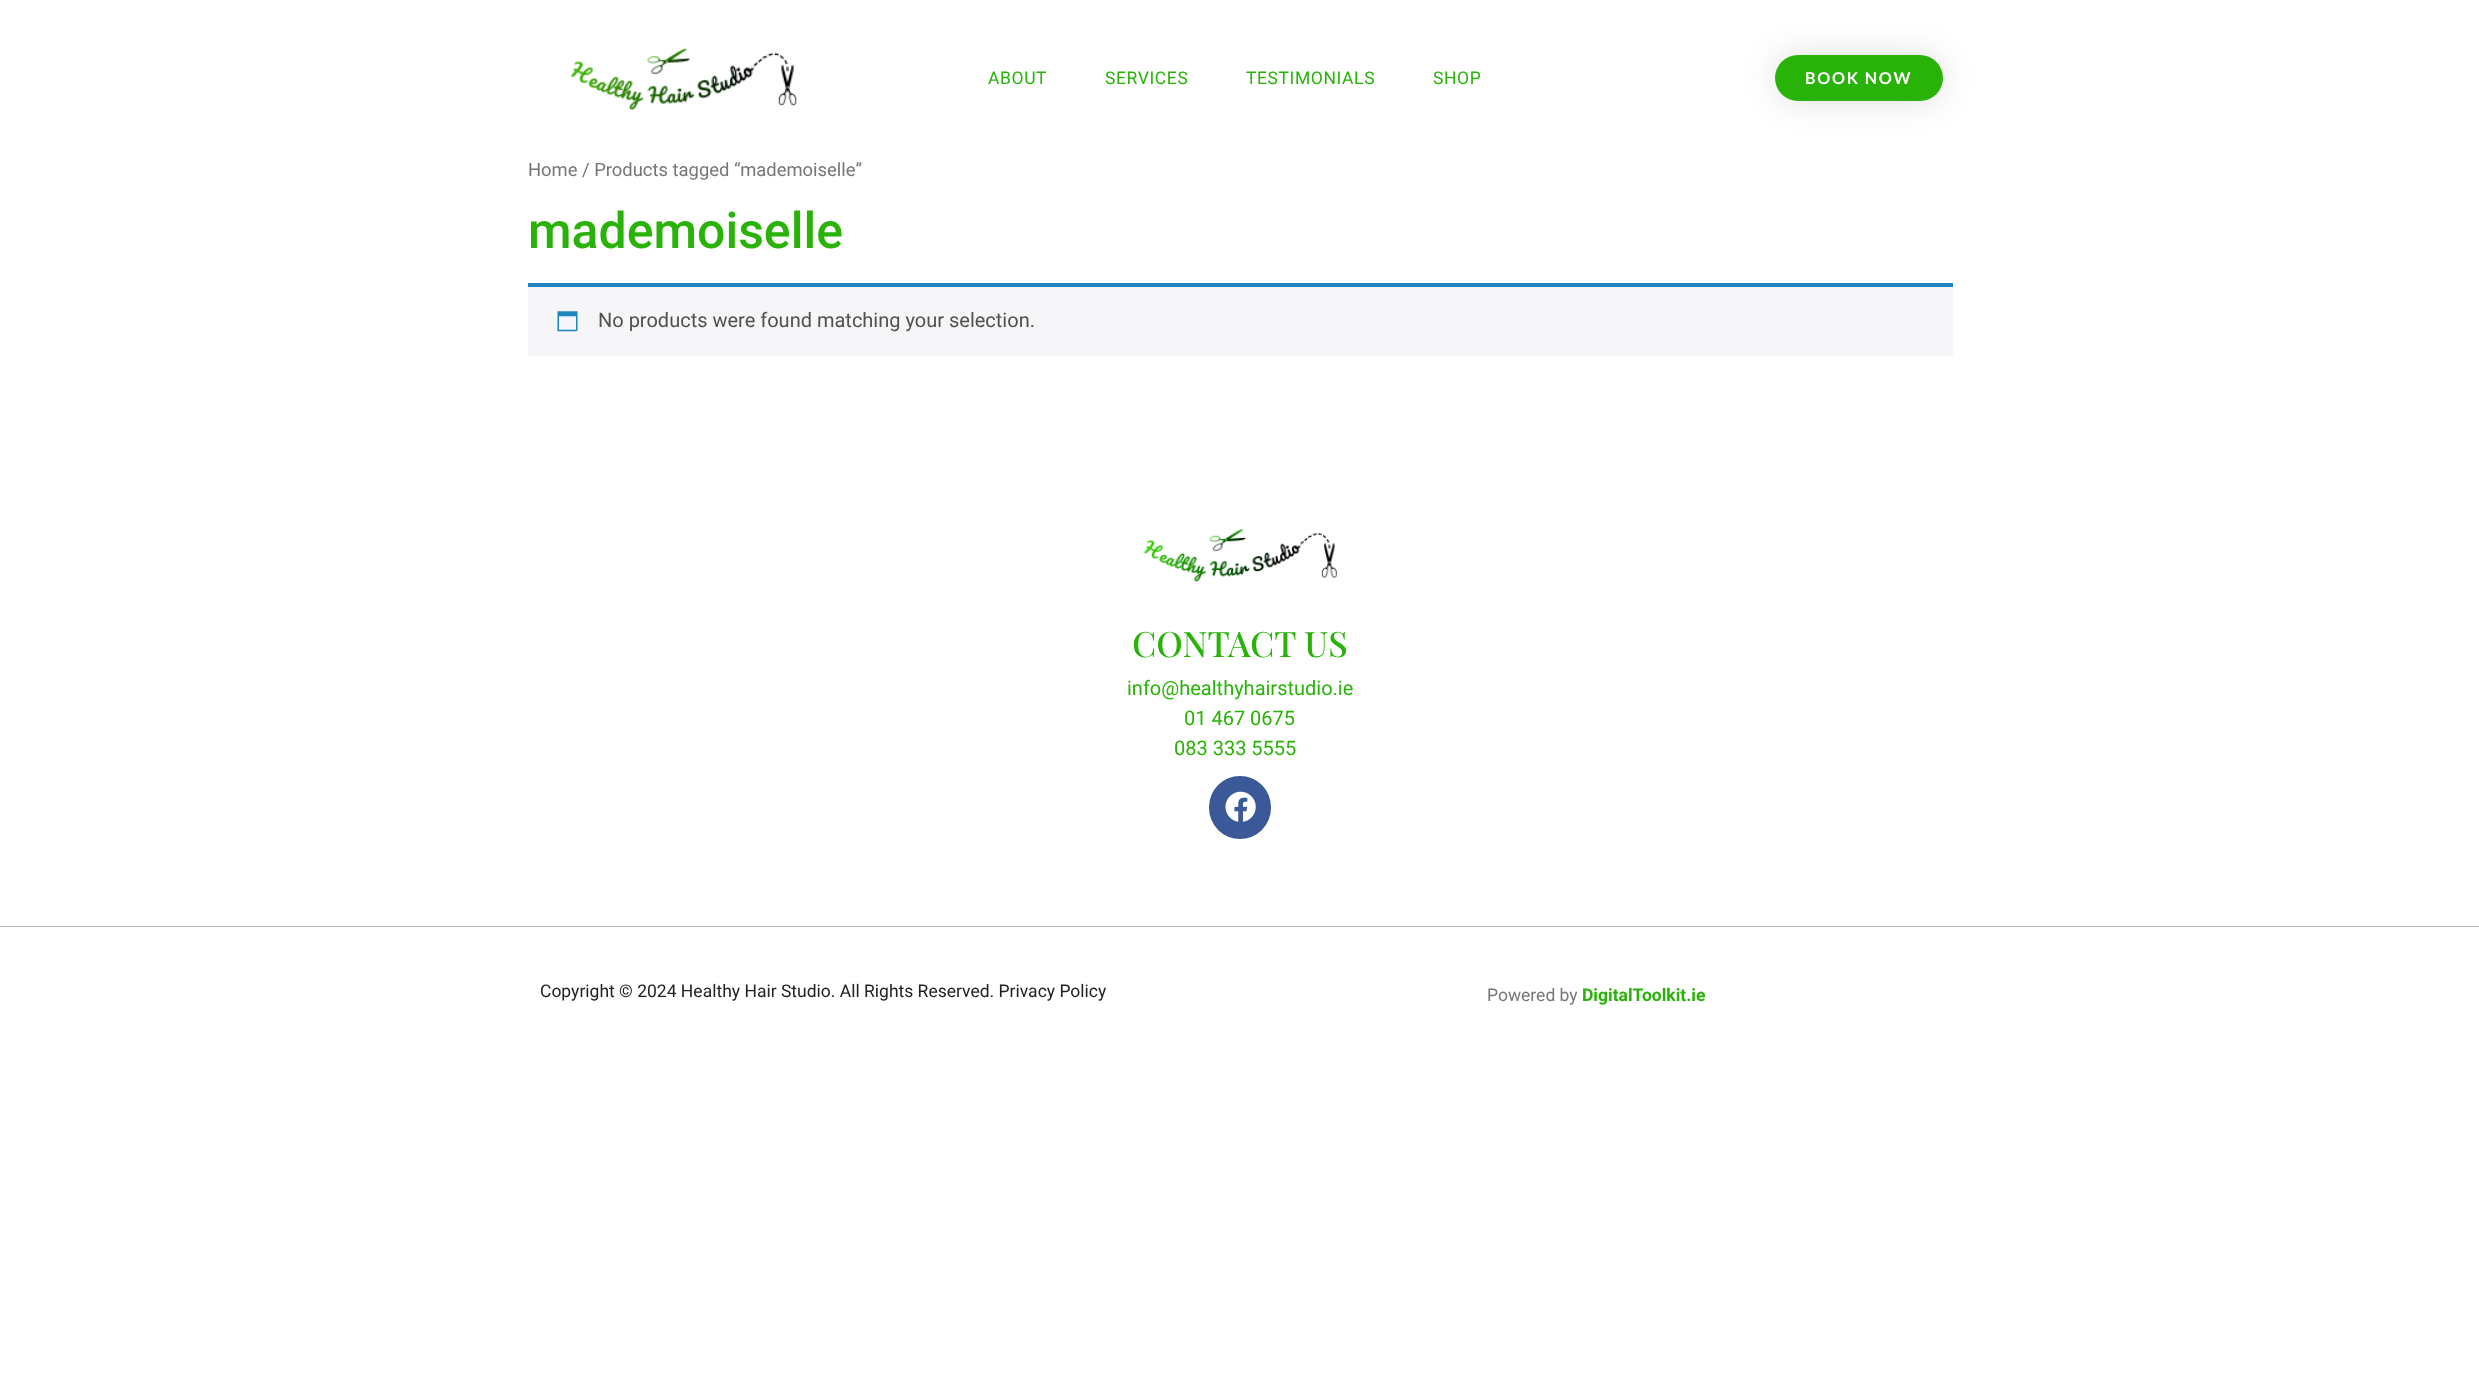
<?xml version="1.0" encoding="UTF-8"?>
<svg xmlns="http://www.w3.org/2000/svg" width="2479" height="1383">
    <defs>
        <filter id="blur1" x="-50%" y="-200%" width="200%" height="500%"><feGaussianBlur stdDeviation="17"/></filter>
    </defs>
    <rect width="100%" height="100%" fill="#FFFFFF"/>
    <image x="571" y="48" width="226" height="63" href="img_01.png"/>
    <text x="988" y="84" font-family="Roboto" font-size="17.5" letter-spacing="0.6" fill="#29B309">ABOUT</text>
    <text x="1105" y="84" font-family="Roboto" font-size="17.5" letter-spacing="0.6" fill="#29B309">SERVICES</text>
    <text x="1246" y="84" font-family="Roboto" font-size="17.5" letter-spacing="0.6" fill="#29B309">TESTIMONIALS</text>
    <text x="1433" y="84" font-family="Roboto" font-size="17.5" letter-spacing="0.6" fill="#29B309">SHOP</text>
    <rect x="1775" y="55" width="168" height="46" rx="23" fill="#000000" fill-opacity="0.12" filter="url(#blur1)"/>
    <rect x="1775" y="55" width="168" height="46" rx="23" fill="#29B309"/>
    <text x="1805" y="84" font-family="Lato" font-size="16.25" font-weight="700" letter-spacing="1.75" fill="#FFFFFF">BOOK NOW</text>
    <text x="528" y="176" font-family="Roboto" font-size="18.4" fill="#767676">Home / Products tagged “mademoiselle”</text>
    <text x="528" y="248" font-family="Roboto" font-size="50" font-weight="500" fill="#29B309">mademoiselle</text>
    <rect x="528" y="287" width="1425" height="69" fill="#F6F5F8"/>
    <rect x="528" y="283" width="1425" height="4" fill="#1E85BE"/>
    <image x="557" y="311" width="21" height="21" href="img_02.png"/>
    <text x="598" y="327" font-family="Roboto" font-size="20" fill="#515151">No products were found matching your selection.</text>
    <image x="1144" y="529" width="193" height="53" href="img_03.png"/>
    <text x="1132" y="657" font-family="Playfair Display" font-size="35" font-weight="500" fill="#29B309">CONTACT US</text>
    <text x="1127" y="695" font-family="Roboto" font-size="20" fill="#29B309">info@healthyhairstudio.ie</text>
    <text x="1184" y="725" font-family="Roboto" font-size="20" fill="#29B309">01 467 0675</text>
    <text x="1174" y="755" font-family="Roboto" font-size="20" fill="#29B309">083 333 5555</text>
    <rect x="1209" y="776" width="62" height="63" rx="31" fill="#3B5998"/>
    <image x="1225" y="791" width="31" height="31" href="img_04.png"/>
    <rect x="0" y="926" width="2479" height="1" fill="#BFBFBF"/>
    <text x="540" y="997" font-family="Roboto" font-size="17.5" fill="#222222">Copyright © 2024 Healthy Hair Studio. All Rights Reserved. Privacy Policy</text>
    <text x="1487" y="1001" font-family="Roboto" font-size="17.5" fill="#767676">Powered by</text>
    <text x="1582" y="1001" font-family="Roboto" font-size="17.5" font-weight="700" fill="#29B309">DigitalToolkit.ie</text>
</svg>
